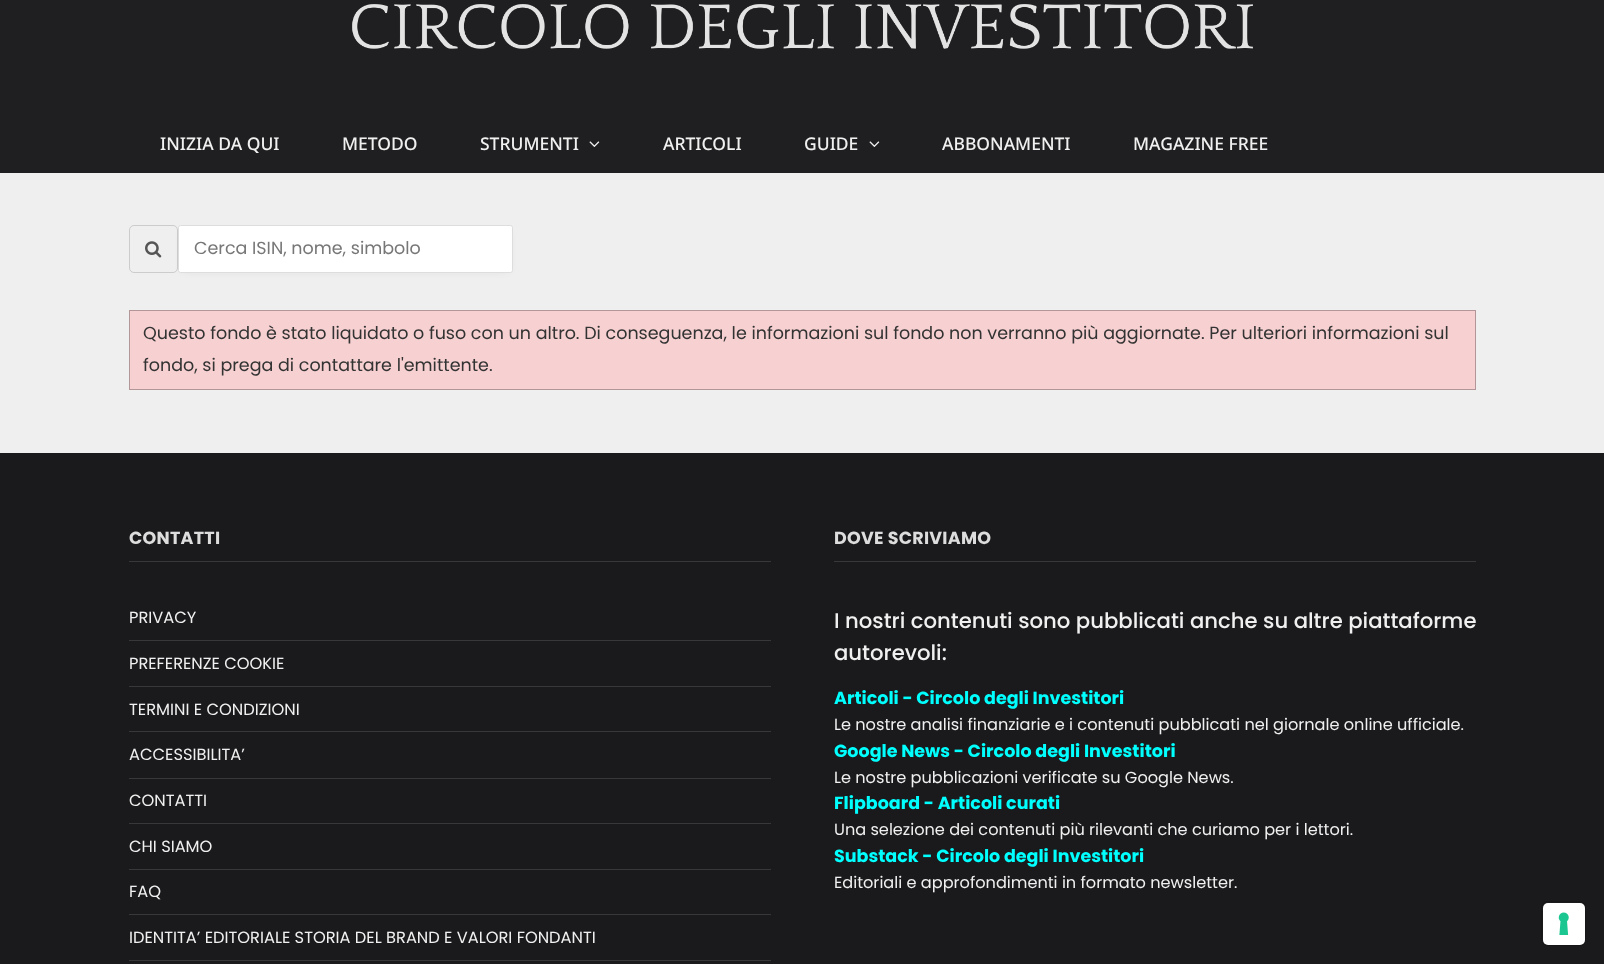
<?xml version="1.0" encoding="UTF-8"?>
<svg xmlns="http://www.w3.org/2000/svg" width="1604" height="964">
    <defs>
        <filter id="blur1" x="-50%" y="-200%" width="200%" height="500%"><feGaussianBlur stdDeviation="4.5"/></filter>
    </defs>
    <rect width="100%" height="100%" fill="#EFEFEF"/>
    <rect x="0" y="0" width="1604" height="173" fill="#1F1F21"/>
    <image x="352" y="4" width="901" height="45" href="img_01.png"/>
    <text x="160" y="150" font-family="Noto Sans" font-size="17.5" font-weight="500" fill="#F0F0F0">INIZIA DA QUI</text>
    <text x="342" y="150" font-family="Noto Sans" font-size="17.5" font-weight="500" fill="#F0F0F0">METODO</text>
    <text x="480" y="150" font-family="Noto Sans" font-size="17.5" font-weight="500" fill="#F0F0F0">STRUMENTI</text>
    <image x="589" y="141" width="11" height="6" href="img_02.png"/>
    <text x="663" y="150" font-family="Noto Sans" font-size="17.5" font-weight="500" fill="#F0F0F0">ARTICOLI</text>
    <text x="804" y="150" font-family="Noto Sans" font-size="17.5" font-weight="500" fill="#F0F0F0">GUIDE</text>
    <image x="869" y="141" width="11" height="6" href="img_02.png"/>
    <text x="942" y="150" font-family="Noto Sans" font-size="17.5" font-weight="500" fill="#F0F0F0">ABBONAMENTI</text>
    <text x="1133" y="150" font-family="Noto Sans" font-size="17.5" font-weight="500" fill="#F0F0F0">MAGAZINE FREE</text>
    <rect x="129.5" y="225.5" width="48" height="47" rx="4.5" fill="none" stroke="#CCCCCC"/>
    <image x="145" y="241" width="17" height="17" href="img_03.png"/>
    <rect x="183" y="233" width="325" height="37" fill="#000000" fill-opacity="0.1" filter="url(#blur1)"/>
    <rect x="178.5" y="225.5" width="334" height="47" rx="2" fill="#FFFFFF" stroke="#DDDDDD"/>
    <text x="194" y="254" font-family="Poppins" font-size="17.5" fill="#777777">Cerca ISIN, nome, simbolo</text>
    <rect x="129.5" y="310.5" width="1346" height="79" fill="#F7D0D1" stroke="#B39798"/>
    <text font-family="Poppins" font-size="17.5" fill="#333333">
        <tspan x="143" y="339">Questo fondo è stato liquidato o fuso con un altro. Di conseguenza, le informazioni sul fondo non verranno più aggiornate. Per ulteriori informazioni sul</tspan>
        <tspan x="143" y="371">fondo, si prega di contattare l'emittente.</tspan>
    </text>
    <rect x="0" y="453" width="1604" height="511" fill="#1A1A1C"/>
    <rect x="129" y="561" width="642" height="1" fill="#38383A"/>
    <text x="129" y="544" font-family="Poppins" font-size="17.5" font-weight="700" letter-spacing="0.25" fill="#DDDDDD">CONTATTI</text>
    <rect x="129" y="640" width="642" height="1" fill="#38383A"/>
    <text x="129" y="623" font-family="Poppins" font-size="16.25" fill="#F0F0F0">PRIVACY</text>
    <rect x="129" y="686" width="642" height="1" fill="#38383A"/>
    <text x="129" y="669" font-family="Poppins" font-size="16.25" fill="#F0F0F0">PREFERENZE COOKIE</text>
    <rect x="129" y="731" width="642" height="1" fill="#38383A"/>
    <text x="129" y="715" font-family="Poppins" font-size="16.25" fill="#F0F0F0">TERMINI E CONDIZIONI</text>
    <rect x="129" y="778" width="642" height="1" fill="#38383A"/>
    <text x="129" y="760" font-family="Poppins" font-size="16.25" fill="#F0F0F0">ACCESSIBILITA’</text>
    <rect x="129" y="823" width="642" height="1" fill="#38383A"/>
    <text x="129" y="806" font-family="Poppins" font-size="16.25" fill="#F0F0F0">CONTATTI</text>
    <rect x="129" y="869" width="642" height="1" fill="#38383A"/>
    <text x="129" y="852" font-family="Poppins" font-size="16.25" fill="#F0F0F0">CHI SIAMO</text>
    <rect x="129" y="914" width="642" height="1" fill="#38383A"/>
    <text x="129" y="897" font-family="Poppins" font-size="16.25" fill="#F0F0F0">FAQ</text>
    <rect x="129" y="960" width="642" height="1" fill="#38383A"/>
    <text x="129" y="943" font-family="Poppins" font-size="16.25" fill="#F0F0F0">IDENTITA’ EDITORIALE STORIA DEL BRAND E VALORI FONDANTI</text>
    <rect x="834" y="561" width="642" height="1" fill="#38383A"/>
    <text x="834" y="544" font-family="Poppins" font-size="17.5" font-weight="700" letter-spacing="0.25" fill="#DDDDDD">DOVE SCRIVIAMO</text>
    <text font-family="Poppins" font-size="21.2" font-weight="500" fill="#F0F0F0">
        <tspan x="834" y="628">I nostri contenuti sono pubblicati anche su altre piattaforme</tspan>
        <tspan x="834" y="660">autorevoli:</tspan>
    </text>
    <text x="834" y="704" font-family="Poppins" font-size="17.5" font-weight="700" fill="#00FFFF">Articoli - Circolo degli Investitori</text>
    <text x="834" y="730" font-family="Poppins" font-size="16.15" fill="#F0F0F0">Le nostre analisi finanziarie e i contenuti pubblicati nel giornale online ufficiale.</text>
    <text x="834" y="757" font-family="Poppins" font-size="17.5" font-weight="700" fill="#00FFFF">Google News - Circolo degli Investitori</text>
    <text x="834" y="783" font-family="Poppins" font-size="16.15" fill="#F0F0F0">Le nostre pubblicazioni verificate su Google News.</text>
    <text x="834" y="809" font-family="Poppins" font-size="17.5" font-weight="700" fill="#00FFFF">Flipboard - Articoli curati</text>
    <text x="834" y="835" font-family="Poppins" font-size="16.15" fill="#F0F0F0">Una selezione dei contenuti più rilevanti che curiamo per i lettori.</text>
    <text x="834" y="862" font-family="Poppins" font-size="17.5" font-weight="700" fill="#00FFFF">Substack - Circolo degli Investitori</text>
    <text x="834" y="888" font-family="Poppins" font-size="16.15" fill="#F0F0F0">Editoriali e approfondimenti in formato newsletter.</text>
    <rect x="1541.5" y="901.5" width="44" height="44" rx="5.5" fill="none" stroke="#161618"/>
    <rect x="1543" y="903" width="42" height="42" rx="5" fill="#FFFFFF"/>
    <image x="1558" y="912" width="11" height="23" href="img_04.png"/>
</svg>
